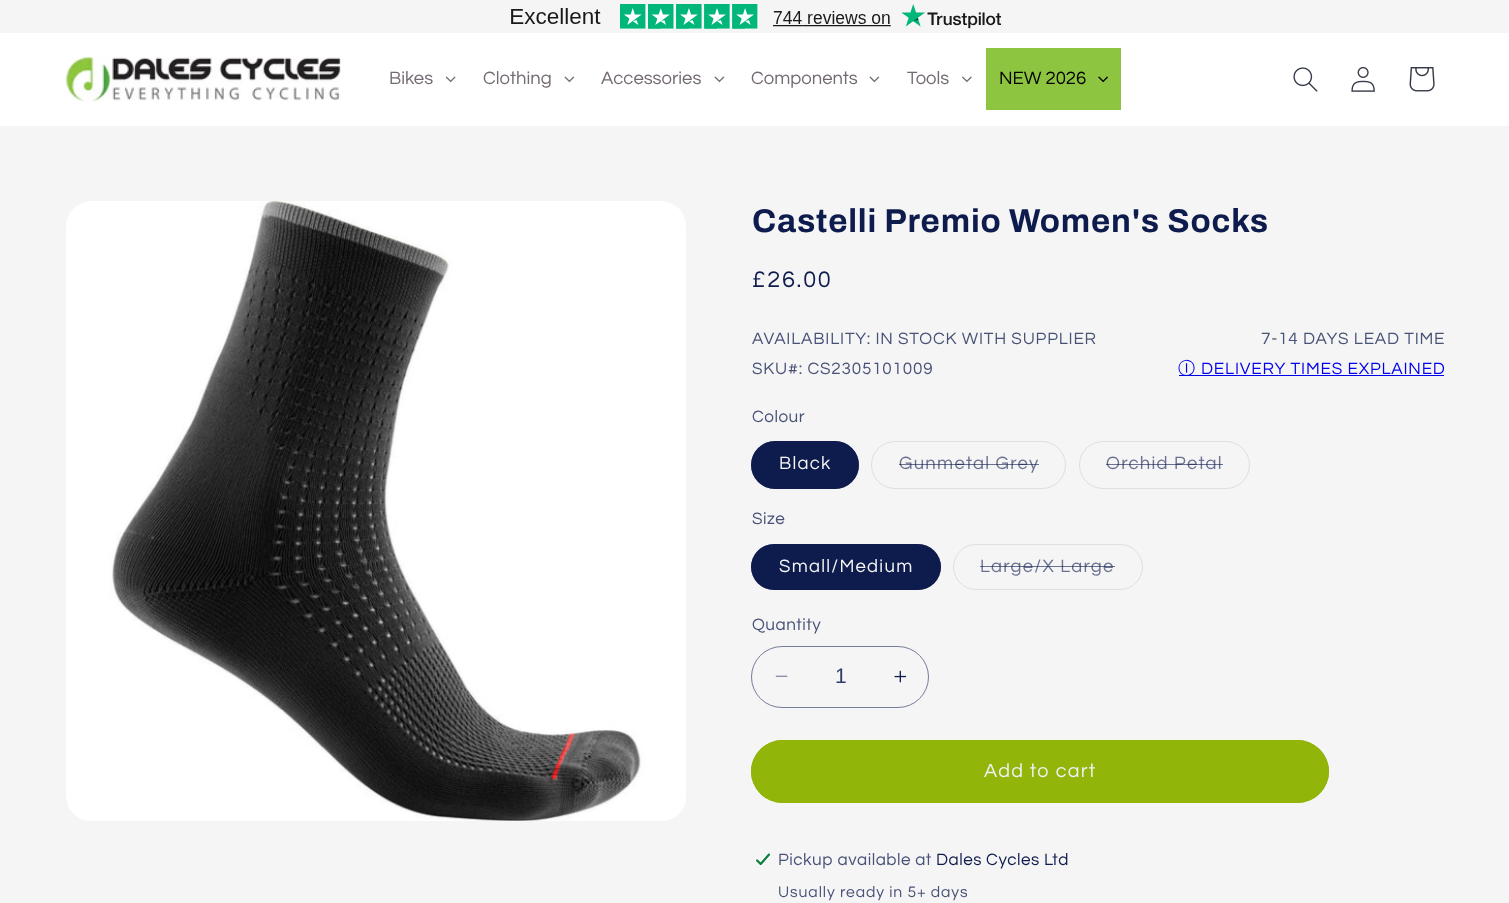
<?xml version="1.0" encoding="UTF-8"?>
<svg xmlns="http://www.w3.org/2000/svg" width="1509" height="903">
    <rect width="100%" height="100%" fill="#F5F5F5"/>
    <image x="511" y="4" width="491" height="25" href="img_01.png"/>
    <rect x="0" y="33" width="1509" height="93" fill="#FFFFFF"/>
    <image x="66" y="57" width="275" height="45" href="img_02.png"/>
    <text x="389" y="84" font-family="Questrial" font-size="18.5" fill="#736A73">Bikes</text>
    <image x="445" y="76" width="11" height="7" href="img_03.png"/>
    <text x="483" y="84" font-family="Questrial" font-size="18.5" fill="#736A73">Clothing</text>
    <image x="564" y="76" width="11" height="7" href="img_04.png"/>
    <text x="601" y="84" font-family="Questrial" font-size="18.5" fill="#736A73">Accessories</text>
    <image x="714" y="76" width="11" height="7" href="img_04.png"/>
    <text x="751" y="84" font-family="Questrial" font-size="18.5" fill="#736A73">Components</text>
    <image x="869" y="76" width="11" height="7" href="img_04.png"/>
    <text x="907" y="84" font-family="Questrial" font-size="18.5" fill="#736A73">Tools</text>
    <image x="962" y="76" width="10" height="7" href="img_05.png"/>
    <rect x="986" y="48" width="135" height="62" fill="#8DC540"/>
    <text x="999" y="84" font-family="Questrial" font-size="18.5" fill="#000000">NEW 2026</text>
    <image x="1098" y="76" width="10" height="7" href="img_06.png"/>
    <image x="1293" y="67" width="25" height="25" href="img_07.png"/>
    <image x="1351" y="66" width="24" height="26" href="img_08.png"/>
    <image x="1409" y="67" width="26" height="25" href="img_09.png"/>
    <image x="66" y="201" width="620" height="620" href="img_10.png"/>
    <text x="752" y="232" font-family="Archivo" font-size="33" font-weight="700" letter-spacing="0.8" fill="#0E1B4D">Castelli Premio Women's Socks</text>
    <text x="752" y="287" font-family="Questrial" font-size="23.5" letter-spacing="1.75" fill="#0E1B4D">£26.00</text>
    <text x="752" y="344" font-family="Questrial" font-size="17.1" letter-spacing="0.8" fill="#485277">AVAILABILITY: IN STOCK WITH SUPPLIER</text>
    <text x="1261" y="344" font-family="Questrial" font-size="17.1" letter-spacing="0.8" fill="#485277">7-14 DAYS LEAD TIME</text>
    <text x="752" y="374" font-family="Questrial" font-size="17.1" letter-spacing="0.8" fill="#485277">SKU#: CS2305101009</text>
    <rect x="1179" y="375" width="265" height="1" fill="#0000EE"/>
    <text x="1178" y="374" font-family="WenQuanYi Zen Hei" font-size="17.1" font-weight="500" letter-spacing="0.8" fill="#0000EE">Ⓘ</text>
    <text x="1201" y="374" font-family="Questrial" font-size="17.1" letter-spacing="0.8" fill="#0000EE">DELIVERY TIMES EXPLAINED</text>
    <text x="752" y="422" font-family="Questrial" font-size="17.1" letter-spacing="0.5" fill="#485277">Colour</text>
    <rect x="751" y="441" width="108" height="48" rx="24" fill="#0E1B4D"/>
    <rect x="751.5" y="441.5" width="107" height="47" rx="23.5" fill="none" stroke="#0E1B4D" stroke-opacity="0.55"/>
    <text x="779" y="469" font-family="Questrial" font-size="18.5" letter-spacing="1.25" fill="#F5F5F5">Black</text>
    <rect x="871.5" y="441.5" width="194" height="47" rx="23.5" fill="none" stroke="#DEDFE4"/>
    <text x="899" y="469" font-family="Questrial" font-size="18.5" letter-spacing="1.25" fill="#6A7290">Gunmetal Grey</text>
    <rect x="899" y="464" width="140" height="1" fill="#0E1B4D" fill-opacity="0.6"/>
    <rect x="1079.5" y="441.5" width="170" height="47" rx="23.5" fill="none" stroke="#DEDFE4"/>
    <text x="1106" y="469" font-family="Questrial" font-size="18.5" letter-spacing="1.25" fill="#6A7290">Orchid Petal</text>
    <rect x="1106" y="464" width="117" height="1" fill="#0E1B4D" fill-opacity="0.6"/>
    <text x="752" y="524" font-family="Questrial" font-size="17.1" letter-spacing="0.5" fill="#485277">Size</text>
    <rect x="751" y="544" width="190" height="46" rx="23" fill="#0E1B4D"/>
    <rect x="751.5" y="544.5" width="189" height="45" rx="22.5" fill="none" stroke="#0E1B4D" stroke-opacity="0.55"/>
    <text x="779" y="572" font-family="Questrial" font-size="18.5" letter-spacing="1.25" fill="#F5F5F5">Small/Medium</text>
    <rect x="953.5" y="544.5" width="189" height="45" rx="22.5" fill="none" stroke="#DEDFE4"/>
    <text x="980" y="572" font-family="Questrial" font-size="18.5" letter-spacing="1.25" fill="#6A7290">Large/X Large</text>
    <rect x="980" y="566" width="135" height="1" fill="#0E1B4D" fill-opacity="0.6"/>
    <text x="752" y="630" font-family="Questrial" font-size="17.1" letter-spacing="0.5" fill="#485277">Quantity</text>
    <image x="775" y="675" width="13" height="2" href="img_11.png"/>
    <image x="894" y="670" width="12" height="13" href="img_12.png"/>
    <rect x="751.5" y="646.5" width="177" height="61" rx="30.5" fill="none" stroke="#767D99"/>
    <text x="835" y="683" font-family="Liberation Sans" font-size="21" fill="#313C66">1</text>
    <rect x="751" y="740" width="578" height="63" rx="31.5" fill="#91B508"/>
    <rect x="751.5" y="740.5" width="577" height="62" rx="31" fill="none" stroke="#91B508"/>
    <text x="984" y="777" font-family="Questrial" font-size="19.75" letter-spacing="1.25" fill="#EFF0F5">Add to cart</text>
    <image x="755" y="853" width="16" height="13" href="img_13.png"/>
    <text x="778" y="865" font-family="Questrial" font-size="17.1" letter-spacing="0.5" fill="#485277">Pickup available at</text>
    <text x="936" y="865" font-family="Questrial" font-size="17.1" letter-spacing="0.5" fill="#0E1B4D">Dales Cycles Ltd</text>
    <text x="778" y="897" font-family="Questrial" font-size="15.75" letter-spacing="0.9" fill="#485277">Usually ready in 5+ days</text>
</svg>
